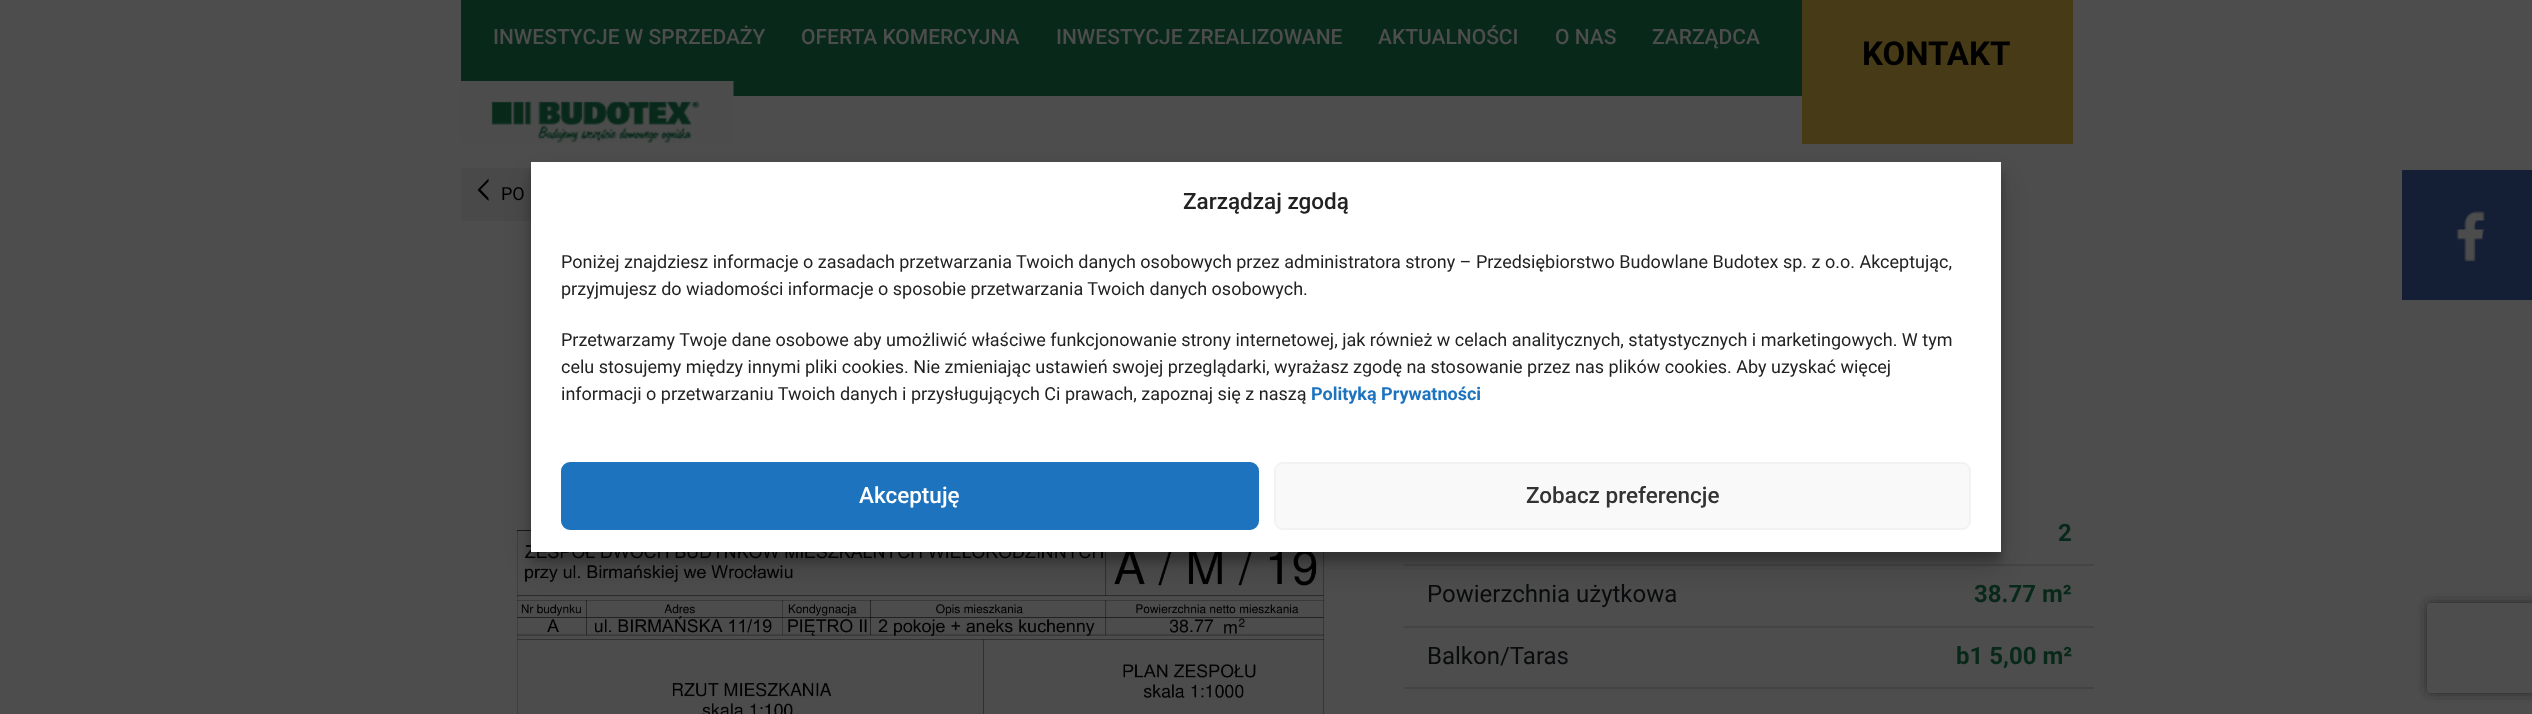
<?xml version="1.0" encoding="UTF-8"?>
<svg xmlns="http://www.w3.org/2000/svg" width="2532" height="714">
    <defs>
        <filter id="blur1" x="-50%" y="-200%" width="200%" height="500%"><feGaussianBlur stdDeviation="4.5"/></filter>
        <filter id="blur2" x="-50%" y="-200%" width="200%" height="500%"><feGaussianBlur stdDeviation="15"/></filter>
        <clipPath id="clip1"><path d="M 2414 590 H 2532 V 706 H 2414 Z M 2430 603 H 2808 C 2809.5 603 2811 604.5 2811 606 V 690 C 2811 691.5 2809.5 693 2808 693 H 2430 C 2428.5 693 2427 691.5 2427 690 V 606 C 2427 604.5 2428.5 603 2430 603 Z" clip-rule="evenodd"/></clipPath>
        <filter id="blur3" x="-50%" y="-200%" width="200%" height="500%"><feGaussianBlur stdDeviation="4"/></filter>
    </defs>
    <rect width="100%" height="100%" fill="#4D4D4D"/>
    <rect x="461" y="0" width="1341" height="96" fill="#08291A"/>
    <text x="493" y="44" font-family="Roboto" font-size="21" font-weight="500" fill="#4D4D4D">INWESTYCJE W SPRZEDAŻY</text>
    <text x="801" y="44" font-family="Roboto" font-size="21" font-weight="500" fill="#4D4D4D">OFERTA KOMERCYJNA</text>
    <text x="1056" y="44" font-family="Roboto" font-size="21" font-weight="500" fill="#4D4D4D">INWESTYCJE ZREALIZOWANE</text>
    <text x="1378" y="44" font-family="Roboto" font-size="21" font-weight="500" fill="#4D4D4D">AKTUALNOŚCI</text>
    <text x="1555" y="44" font-family="Roboto" font-size="21" font-weight="500" fill="#4D4D4D">O NAS</text>
    <text x="1652" y="44" font-family="Roboto" font-size="21" font-weight="500" fill="#4D4D4D">ZARZĄDCA</text>
    <rect x="1802" y="0" width="271" height="144" fill="#473A16"/>
    <text x="1862" y="65" font-family="Roboto" font-size="33" font-weight="700" fill="#000000">KONTAKT</text>
    <image x="461" y="81" width="273" height="62" href="img_01.png"/>
    <rect x="461" y="168" width="70" height="53" fill="#494949"/>
    <path d="M 488.5 201 V 198 L 480.5 189.5 L 488.5 181.5 V 178.5 L 477.5 190 Z" fill="#000000"/>
    <text x="501" y="200" font-family="Roboto" font-size="18" fill="#000000">PO</text>
    <image x="516" y="530" width="809" height="184" href="img_02.png"/>
    <rect x="1404" y="564" width="690" height="2" fill="#434445"/>
    <text x="2058" y="541" font-family="Roboto" font-size="24" font-weight="700" fill="#08291A">2</text>
    <rect x="1404" y="626" width="690" height="2" fill="#434445"/>
    <text x="1427" y="602" font-family="Roboto" font-size="24" fill="#0A0B0C">Powierzchnia użytkowa</text>
    <text x="1974" y="602" font-family="Roboto" font-size="24" font-weight="700" fill="#08291A">38.77 m²</text>
    <rect x="1404" y="687" width="690" height="2" fill="#434445"/>
    <text x="1427" y="664" font-family="Roboto" font-size="24" fill="#0A0B0C">Balkon/Taras</text>
    <text x="1956" y="664" font-family="Roboto" font-size="24" font-weight="700" fill="#08291A">b1 5,00 m²</text>
    <image x="2402" y="170" width="130" height="130" href="img_03.png"/>
    <rect x="531" y="171" width="1470" height="390" fill="#000000" fill-opacity="0.23" filter="url(#blur1)"/>
    <rect x="531" y="177" width="1470" height="390" fill="#000000" fill-opacity="0.19" filter="url(#blur2)"/>
    <rect x="531" y="162" width="1470" height="390" fill="#FFFFFF"/>
    <text x="1183" y="209" font-family="Roboto" font-size="22.5" font-weight="500" fill="#222222">Zarządzaj zgodą</text>
    <text font-family="Roboto" font-size="18" fill="#222222">
        <tspan x="561" y="268">Poniżej znajdziesz informacje o zasadach przetwarzania Twoich danych osobowych przez administratora strony – Przedsiębiorstwo Budowlane Budotex sp. z o.o. Akceptując,</tspan>
        <tspan x="561" y="295">przyjmujesz do wiadomości informacje o sposobie przetwarzania Twoich danych osobowych.</tspan>
    </text>
    <text font-family="Roboto" font-size="18" fill="#222222">
        <tspan x="561" y="346">Przetwarzamy Twoje dane osobowe aby umożliwić właściwe funkcjonowanie strony internetowej, jak również w celach analitycznych, statystycznych i marketingowych. W tym</tspan>
        <tspan x="561" y="373">celu stosujemy między innymi pliki cookies. Nie zmieniając ustawień swojej przeglądarki, wyrażasz zgodę na stosowanie przez nas plików cookies. Aby uzyskać więcej</tspan>
        <tspan x="561" y="400">informacji o przetwarzaniu Twoich danych i przysługujących Ci prawach, zapoznaj się z naszą</tspan>
    </text>
    <text x="1311" y="400" font-family="Roboto" font-size="18" font-weight="700" fill="#1E73BE">Polityką Prywatności</text>
    <rect x="562" y="463" width="696" height="66" rx="8" fill="#1E73BE" stroke="#1E73BE" stroke-width="2"/>
    <text x="859" y="503" font-family="Roboto" font-size="22.5" font-weight="500" fill="#FFFFFF">Akceptuję</text>
    <rect x="1275" y="463" width="695" height="66" rx="8" fill="#F9F9F9" stroke="#F2F2F2" stroke-width="2"/>
    <text x="1526" y="503" font-family="Roboto" font-size="22.5" font-weight="500" fill="#333333">Zobacz preferencje</text>
    <g clip-path="url(#clip1)">
        <rect x="2427" y="603" width="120" height="90" rx="3" fill="#262626" filter="url(#blur3)"/>
    </g>
</svg>
